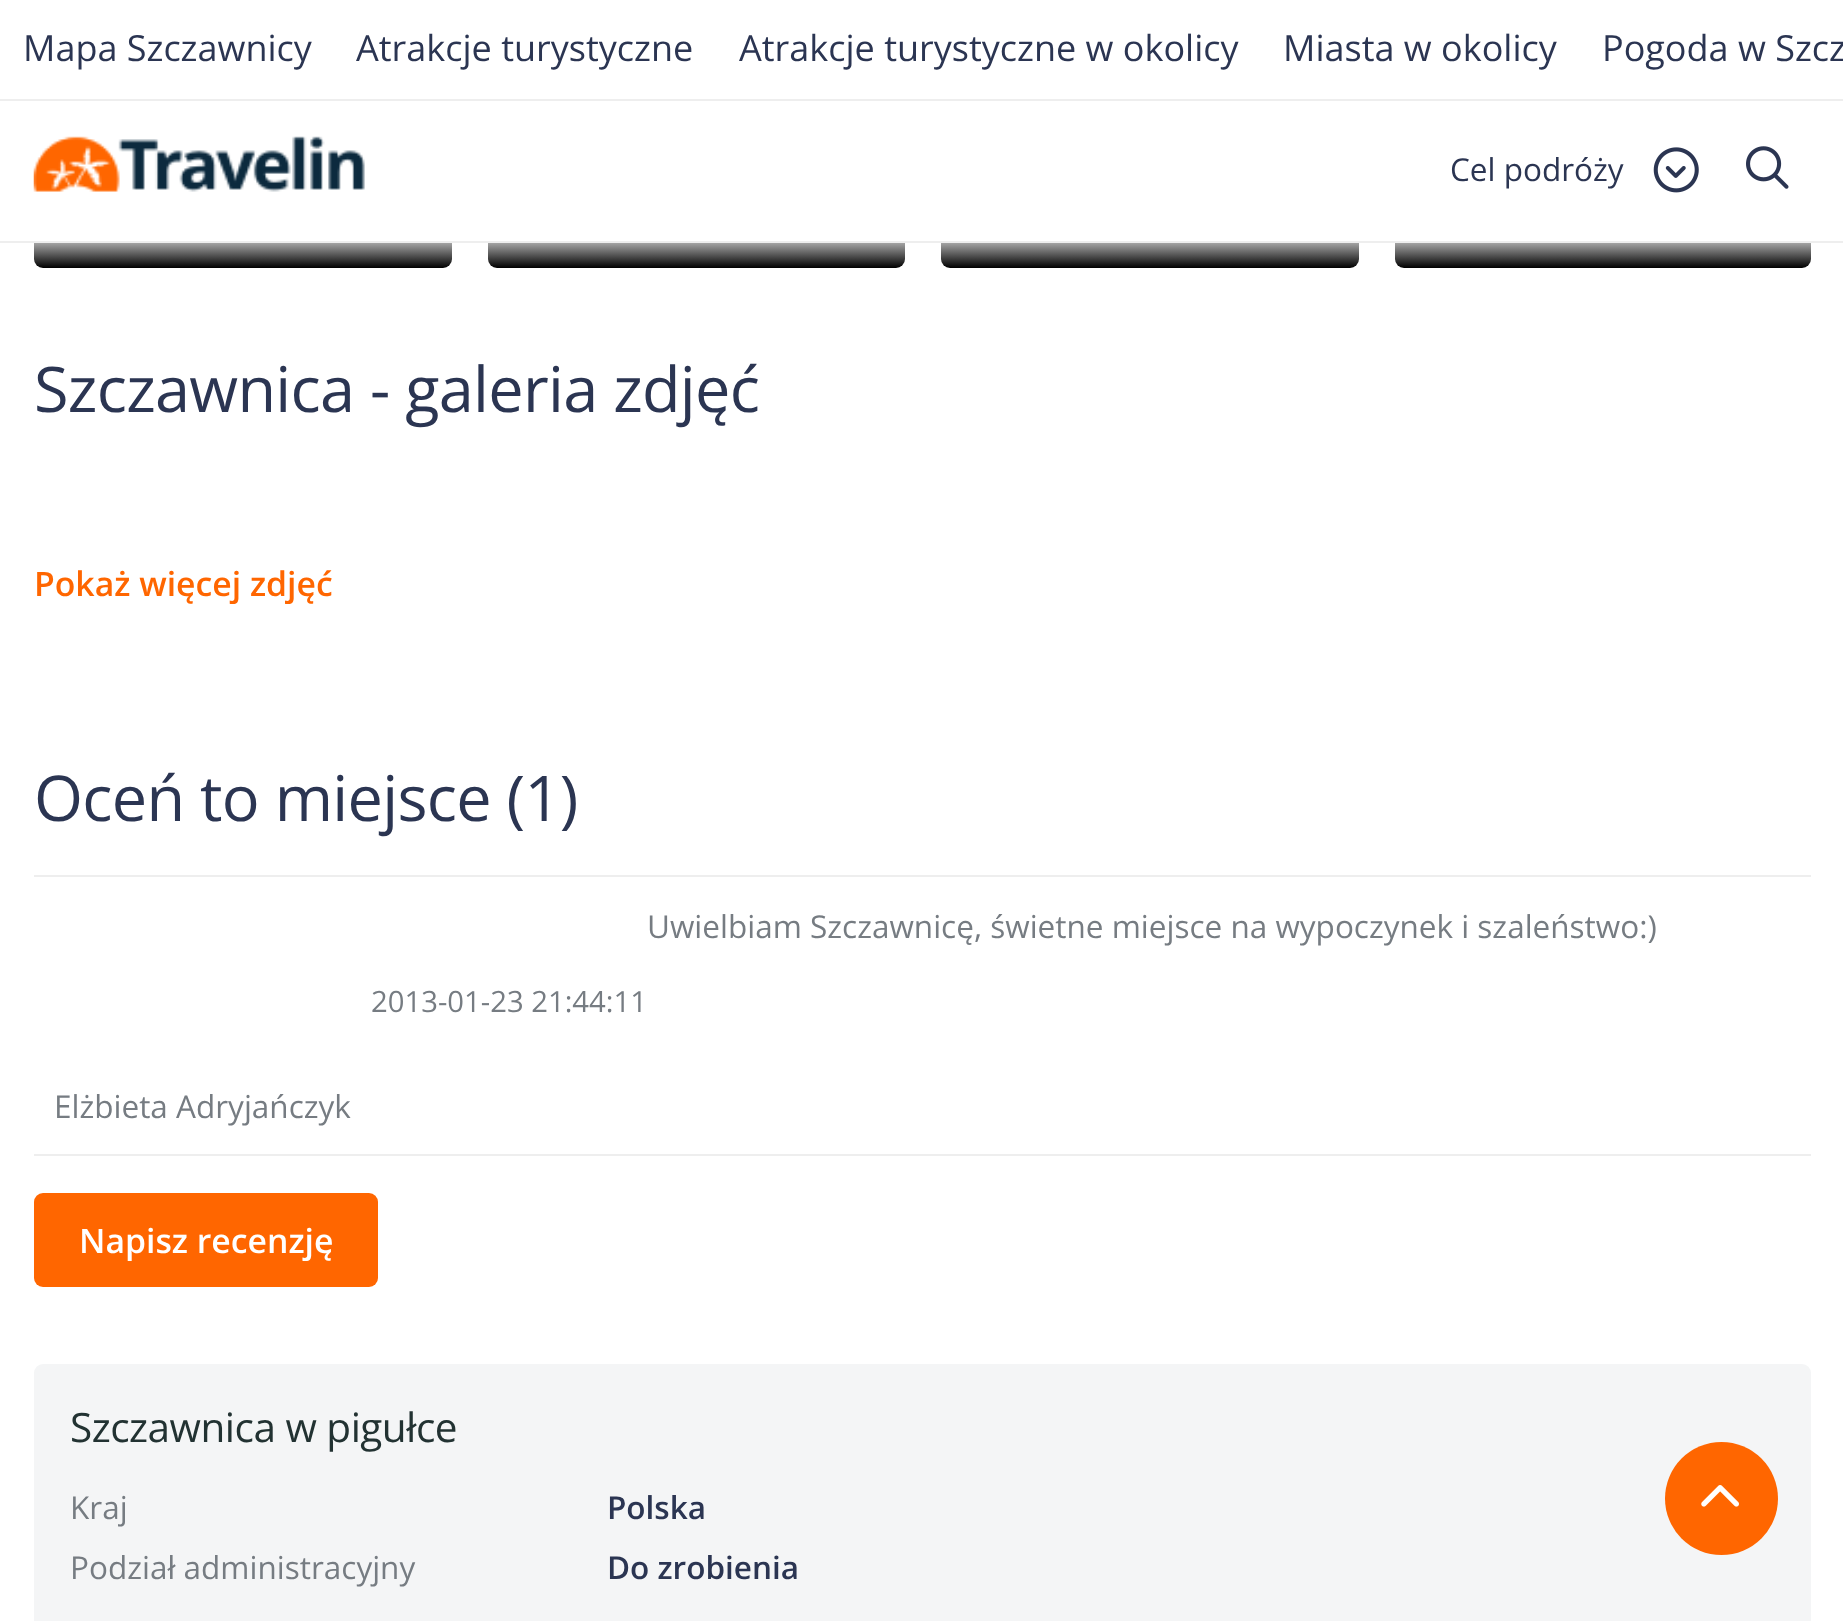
<?xml version="1.0" encoding="UTF-8"?>
<svg xmlns="http://www.w3.org/2000/svg" width="1843" height="1621">
    <defs>
        <linearGradient id="g1" gradientUnits="userSpaceOnUse" x1="243" y1="229" x2="243" y2="268"><stop offset="0" stop-color="#FFFFFF"/><stop offset="1" stop-color="#000000"/></linearGradient>
        <linearGradient id="g2" gradientUnits="userSpaceOnUse" x1="696" y1="229" x2="696" y2="268"><stop offset="0" stop-color="#FFFFFF"/><stop offset="1" stop-color="#000000"/></linearGradient>
        <linearGradient id="g3" gradientUnits="userSpaceOnUse" x1="1150" y1="229" x2="1150" y2="268"><stop offset="0" stop-color="#FFFFFF"/><stop offset="1" stop-color="#000000"/></linearGradient>
        <linearGradient id="g4" gradientUnits="userSpaceOnUse" x1="1603" y1="229" x2="1603" y2="268"><stop offset="0" stop-color="#FFFFFF"/><stop offset="1" stop-color="#000000"/></linearGradient>
    </defs>
    <rect width="100%" height="100%" fill="#FFFFFF"/>
    <rect x="0" y="99" width="1843" height="2" fill="#EEEEEE"/>
    <text x="23" y="61" font-family="Open Sans" font-size="36" fill="#2B3552">Mapa Szczawnicy</text>
    <text x="356" y="61" font-family="Open Sans" font-size="36" fill="#2B3552">Atrakcje turystyczne</text>
    <text x="739" y="61" font-family="Open Sans" font-size="36" fill="#2B3552">Atrakcje turystyczne w okolicy</text>
    <text x="1283" y="61" font-family="Open Sans" font-size="36" fill="#2B3552">Miasta w okolicy</text>
    <text x="1602" y="61" font-family="Open Sans" font-size="36" fill="#2B3552">Pogoda w Szcz</text>
    <rect x="34" y="230" width="418" height="38" rx="9" fill="url(#g1)"/>
    <rect x="488" y="230" width="417" height="38" rx="9" fill="url(#g2)"/>
    <rect x="941" y="230" width="418" height="38" rx="9" fill="url(#g3)"/>
    <rect x="1395" y="230" width="416" height="38" rx="9" fill="url(#g4)"/>
    <text x="34" y="412" font-family="Open Sans" font-size="63" letter-spacing="-0.7" fill="#2B3552">Szczawnica - galeria zdjęć</text>
    <text x="34" y="596" font-family="Open Sans" font-size="33.75" font-weight="600" fill="#FF6600">Pokaż więcej zdjęć</text>
    <text x="34" y="821" font-family="Open Sans" font-size="63" letter-spacing="-0.7" fill="#2B3552">Oceń to miejsce (1)</text>
    <rect x="34" y="875" width="1777" height="2" fill="#EEEEEE"/>
    <rect x="34" y="1154" width="1777" height="2" fill="#EEEEEE"/>
    <text x="647" y="938" font-family="Open Sans" font-size="31.5" fill="#767C82">Uwielbiam Szczawnicę, świetne miejsce na wypoczynek i szaleństwo:)</text>
    <text x="371" y="1012" font-family="Open Sans" font-size="29.25" fill="#767C82">2013-01-23 21:44:11</text>
    <text x="54" y="1118" font-family="Open Sans" font-size="31.5" fill="#767C82">Elżbieta Adryjańczyk</text>
    <rect x="34" y="1193" width="344" height="94" rx="9" fill="#FF6600"/>
    <text x="79" y="1253" font-family="Open Sans" font-size="33.75" font-weight="600" fill="#FFFFFF">Napisz recenzję</text>
    <rect x="34" y="1364" width="1777" height="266" rx="9" fill="#F4F5F6"/>
    <text x="70" y="1442" font-family="Open Sans" font-size="40.5" letter-spacing="-0.5" fill="#223232">Szczawnica w pigułce</text>
    <text x="70" y="1519" font-family="Open Sans" font-size="31.5" fill="#767C82">Kraj</text>
    <text x="607" y="1519" font-family="Open Sans" font-size="31.5" font-weight="600" fill="#2B3552">Polska</text>
    <text x="70" y="1579" font-family="Open Sans" font-size="31.5" fill="#767C82">Podział administracyjny</text>
    <text x="607" y="1579" font-family="Open Sans" font-size="31.5" font-weight="600" fill="#2B3552">Do zrobienia</text>
    <rect x="34" y="230" width="1777" height="11" fill="#FFFFFF"/>
    <rect x="0" y="241" width="1843" height="2" fill="#EEEEEE"/>
    <image x="33" y="136" width="332" height="56" href="img_01.png"/>
    <text x="1450" y="181" font-family="Open Sans" font-size="31.5" fill="#2B3552">Cel podróży</text>
    <image x="1653" y="147" width="46" height="46" href="img_02.png"/>
    <image x="1746" y="146" width="43" height="43" href="img_03.png"/>
    <circle cx="1721.5" cy="1498.5" r="56.5" fill="#FF6600"/>
    <image x="1701" y="1485" width="38" height="22" href="img_04.png"/>
</svg>
